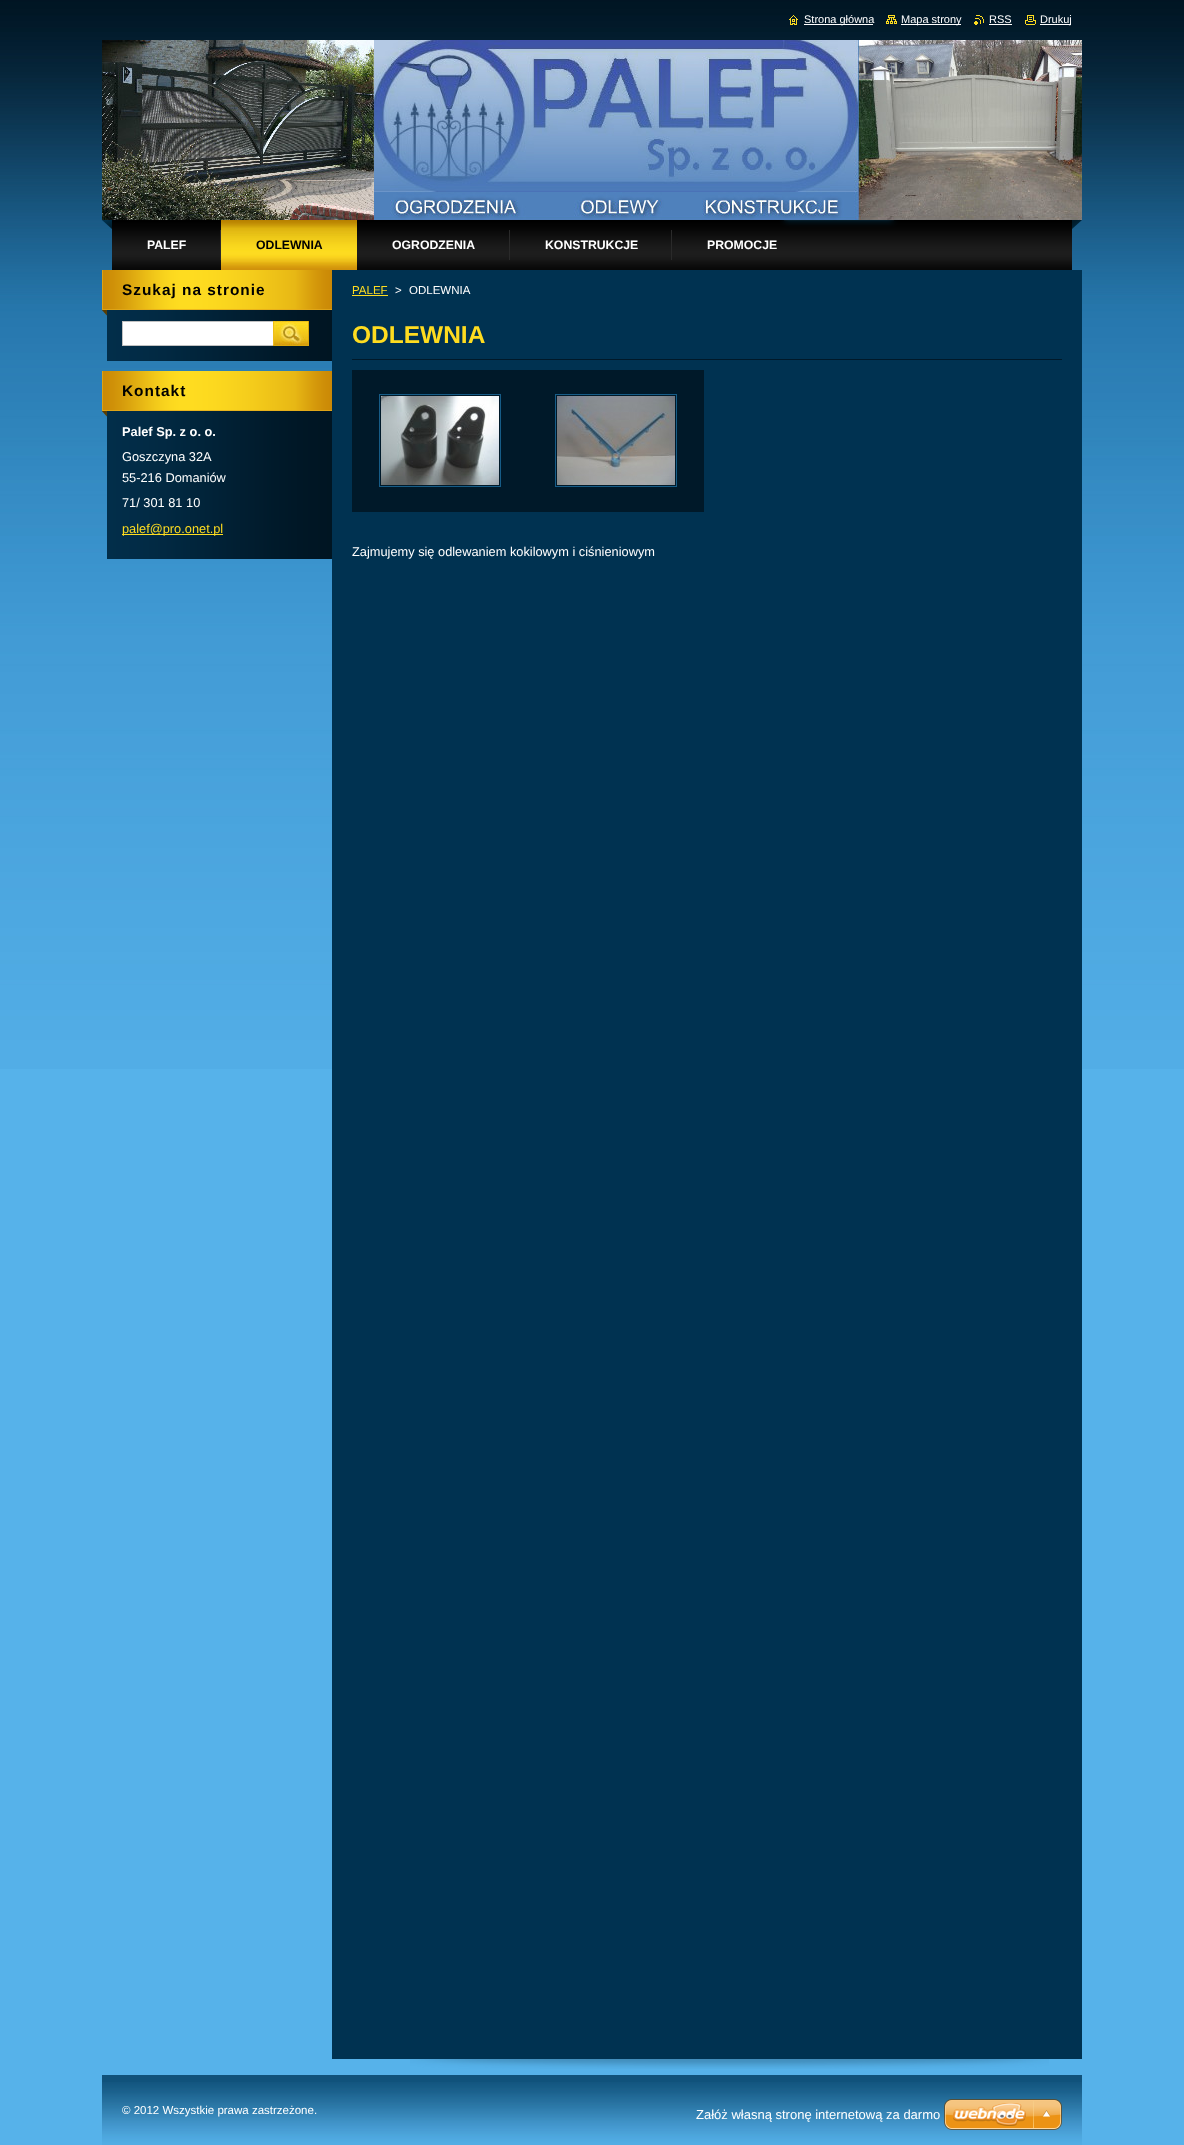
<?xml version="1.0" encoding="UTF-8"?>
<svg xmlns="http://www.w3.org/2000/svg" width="1184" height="2145">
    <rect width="100%" height="100%" fill="#56B2EA"/>
    <image x="0" y="0" width="1184" height="1069" href="img_01.png"/>
    <image x="789" y="15" width="9" height="10" href="img_02.png"/>
    <rect x="804" y="24" width="69" height="1" fill="#FFFFFF"/>
    <text x="804" y="23" font-family="Liberation Sans" font-size="11" fill="#FFFFFF">Strona główna</text>
    <image x="886" y="15" width="11" height="9" href="img_03.png"/>
    <rect x="901" y="24" width="60" height="1" fill="#FFFFFF"/>
    <text x="901" y="23" font-family="Liberation Sans" font-size="11" fill="#FFFFFF">Mapa strony</text>
    <image x="974" y="15" width="10" height="10" href="img_04.png"/>
    <text x="989" y="23" font-family="Liberation Sans" font-size="11" fill="#FFFFFF">RSS</text>
    <rect x="989" y="24" width="23" height="1" fill="#FFFFFF"/>
    <image x="1025" y="15" width="11" height="10" href="img_05.png"/>
    <rect x="1040" y="24" width="31" height="1" fill="#FFFFFF"/>
    <text x="1040" y="23" font-family="Liberation Sans" font-size="11" fill="#FFFFFF">Drukuj</text>
    <image x="102" y="40" width="980" height="180" href="img_06.png"/>
    <image x="102" y="220" width="980" height="50" href="img_07.png"/>
    <rect x="220" y="230" width="1" height="30" fill="#2A2A2A"/>
    <text x="147" y="249" font-family="Liberation Sans" font-size="12.25" font-weight="700" fill="#FFFFFF">PALEF</text>
    <image x="221" y="220" width="136" height="50" href="img_08.png"/>
    <text x="256" y="249" font-family="Liberation Sans" font-size="12.25" font-weight="700" fill="#000000">ODLEWNIA</text>
    <rect x="509" y="230" width="1" height="30" fill="#2A2A2A"/>
    <text x="392" y="249" font-family="Liberation Sans" font-size="12.25" font-weight="700" fill="#FFFFFF">OGRODZENIA</text>
    <rect x="671" y="230" width="1" height="30" fill="#2A2A2A"/>
    <text x="545" y="249" font-family="Liberation Sans" font-size="12.25" font-weight="700" fill="#FFFFFF">KONSTRUKCJE</text>
    <text x="707" y="249" font-family="Liberation Sans" font-size="12.25" font-weight="700" fill="#FFFFFF">PROMOCJE</text>
    <image x="107" y="316" width="225" height="45" href="img_09.png"/>
    <image x="102" y="270" width="230" height="46" href="img_10.png"/>
    <text x="122" y="295" font-family="Liberation Sans" font-size="15.4" font-weight="700" letter-spacing="1" fill="#000000">Szukaj na stronie</text>
    <rect x="122.5" y="321.5" width="151" height="24" fill="#FFFFFF" stroke="#C1C1C1"/>
    <image x="273" y="321" width="36" height="25" href="img_11.png"/>
    <image x="107" y="417" width="225" height="142" href="img_12.png"/>
    <image x="102" y="371" width="230" height="46" href="img_13.png"/>
    <text x="122" y="396" font-family="Liberation Sans" font-size="15.4" font-weight="700" letter-spacing="1" fill="#000000">Kontakt</text>
    <text x="122" y="436" font-family="Liberation Sans" font-size="12.8" font-weight="700" fill="#FFFFFF">Palef Sp. z o. o.</text>
    <text font-family="Liberation Sans" font-size="12.8" fill="#FFFFFF">
        <tspan x="122" y="461">Goszczyna 32A</tspan>
        <tspan x="122" y="482">55-216 Domaniów</tspan>
        <tspan x="122" y="507">71/ 301 81 10</tspan>
    </text>
    <rect x="122" y="534" width="101" height="1" fill="#FEDC20"/>
    <text x="122" y="533" font-family="Liberation Sans" font-size="12.8" fill="#FEDC20">palef@pro.onet.pl</text>
    <image x="410" y="2059" width="639" height="10" href="img_14.png"/>
    <rect x="332" y="270" width="750" height="1789" fill="#003251"/>
    <text x="352" y="294" font-family="Liberation Sans" font-size="11.5" fill="#FEDC20">PALEF</text>
    <rect x="352" y="295" width="36" height="1" fill="#FEDC20"/>
    <text x="395" y="294" font-family="Liberation Sans" font-size="11.5" fill="#FFFFFF">&gt;</text>
    <text x="409" y="294" font-family="Liberation Sans" font-size="11.5" fill="#FFFFFF">ODLEWNIA</text>
    <rect x="352" y="359" width="710" height="1" fill="#001929"/>
    <text x="352" y="343" font-family="Liberation Sans" font-size="24.5" font-weight="700" fill="#FEDC20">ODLEWNIA</text>
    <rect x="352" y="370" width="352" height="142" fill="#001929"/>
    <rect x="379.5" y="394.5" width="121" height="92" fill="none" stroke="#165C87"/>
    <image x="381" y="396" width="118" height="89" href="img_15.png"/>
    <rect x="555.5" y="394.5" width="121" height="92" fill="none" stroke="#165C87"/>
    <image x="557" y="396" width="118" height="89" href="img_16.png"/>
    <text x="352" y="556" font-family="Liberation Sans" font-size="12.8" fill="#FFFFFF">Zajmujemy się odlewaniem kokilowym i ciśnieniowym</text>
    <rect x="102" y="2075" width="980" height="7" fill="#10527B"/>
    <image x="102" y="2082" width="980" height="63" href="img_17.png"/>
    <text x="122" y="2114" font-family="Liberation Sans" font-size="11.5" fill="#FFFFFF">© 2012 Wszystkie prawa zastrzeżone.</text>
    <text x="696" y="2119" font-family="Liberation Sans" font-size="13" fill="#FFFFFF">Załóż własną stronę internetową za darmo</text>
    <image x="944" y="2099" width="118" height="31" href="img_18.png"/>
</svg>
